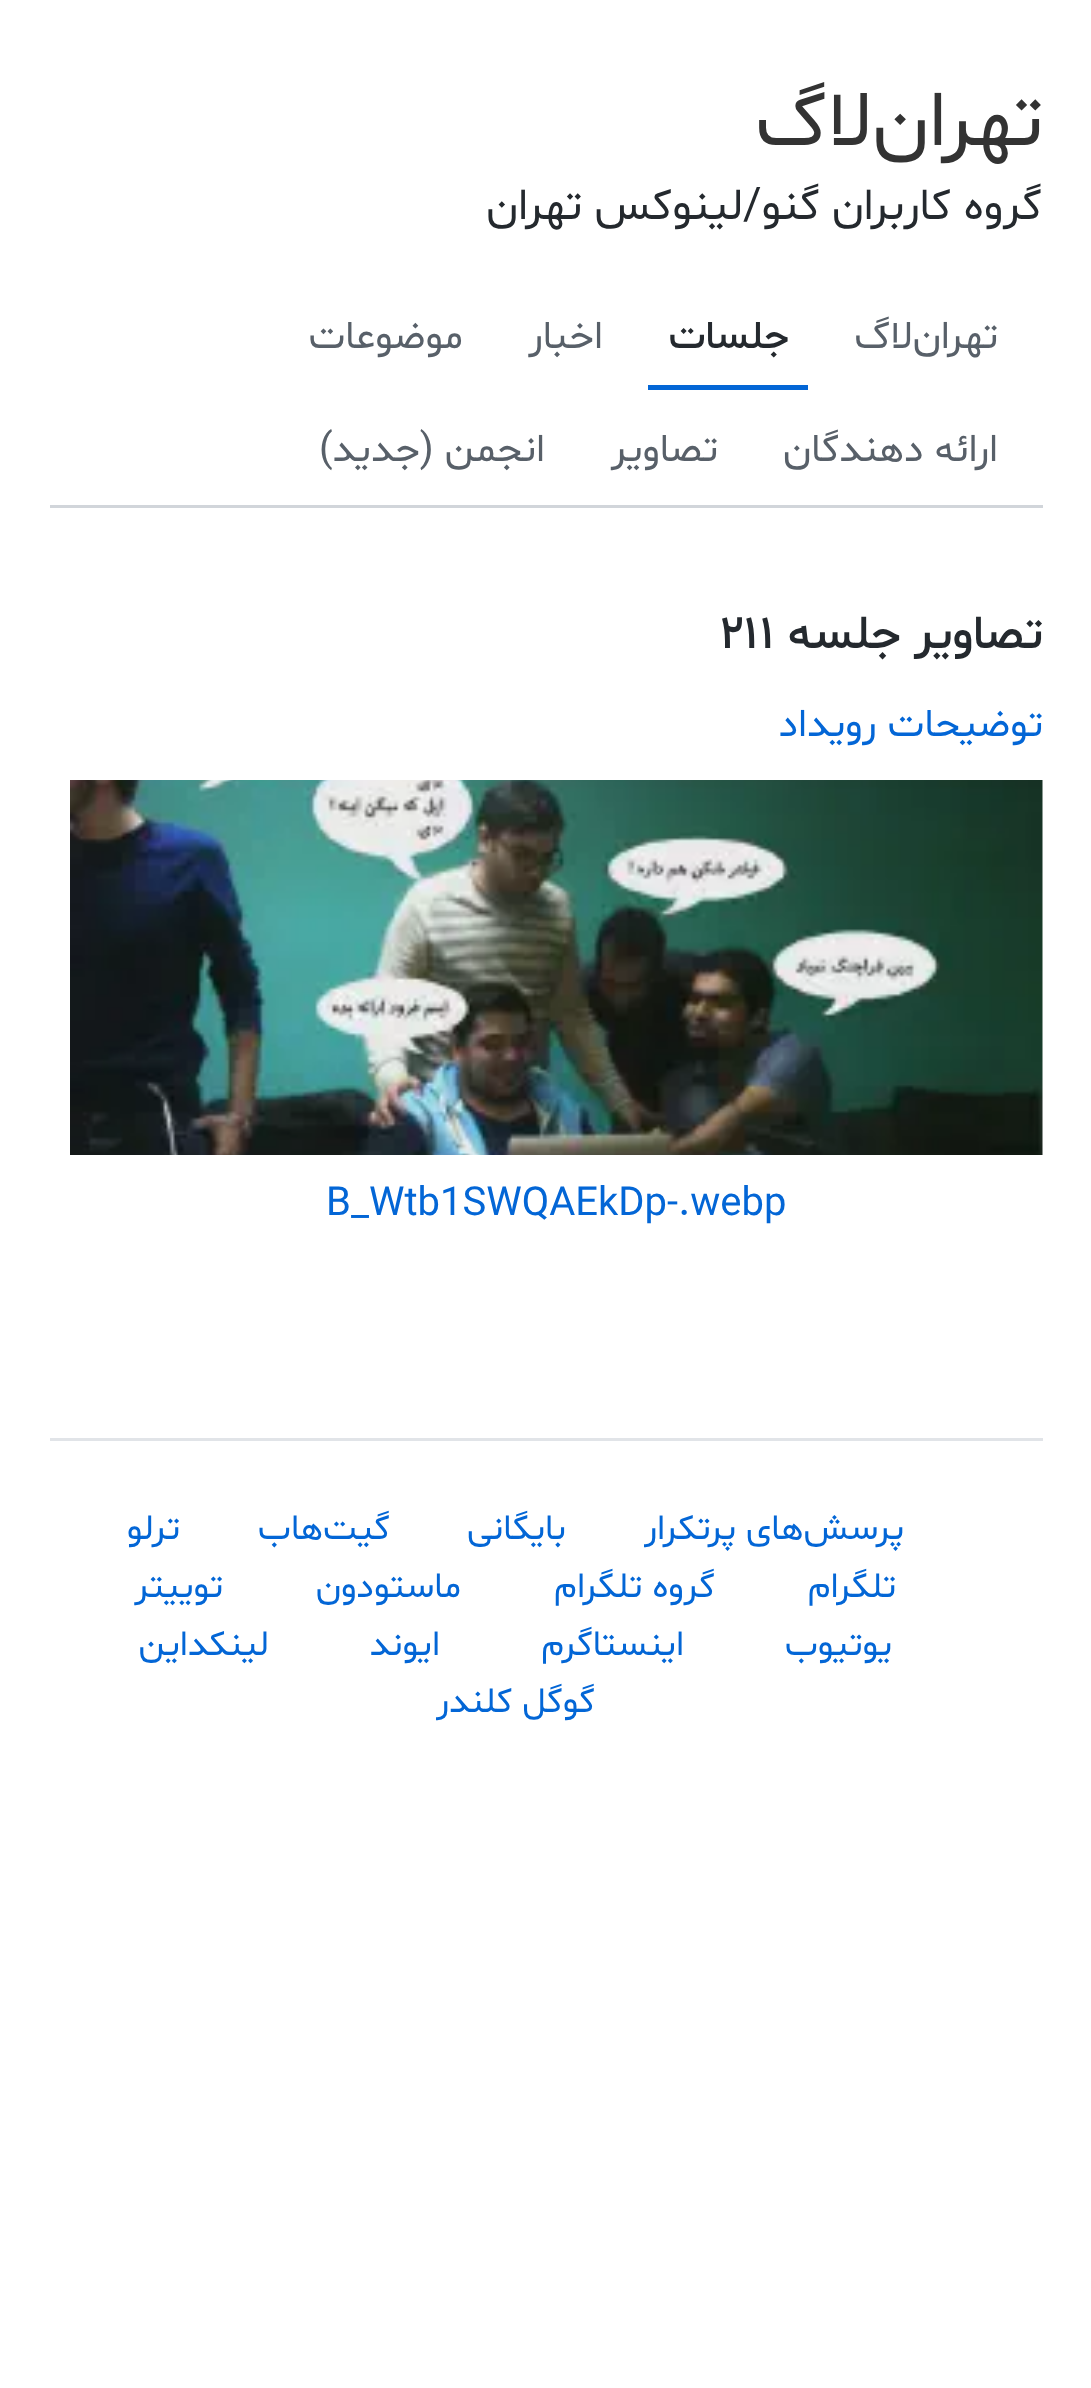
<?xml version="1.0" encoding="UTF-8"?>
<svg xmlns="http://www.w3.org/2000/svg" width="1091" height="2388">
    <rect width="100%" height="100%" fill="#FFFFFF"/>
    <text x="1043" y="145" font-family="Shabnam" font-size="80" direction="rtl" fill="#333333">تهران‌لاگ</text>
    <text x="1042" y="219" font-family="Shabnam" font-size="45" direction="rtl" fill="#24292E">گروه کاربران گنو/لینوکس تهران</text>
    <rect x="50" y="505" width="993" height="3" fill="#D1D5DA"/>
    <text x="998" y="348" font-family="Shabnam" font-size="40" direction="rtl" fill="#586069">تهران‌لاگ</text>
    <text x="789" y="348" font-family="Shabnam" font-size="40" font-weight="500" direction="rtl" fill="#24292E">جلسات</text>
    <rect x="648" y="385" width="160" height="5" fill="#0366D6"/>
    <text x="603" y="348" font-family="Shabnam" font-size="40" direction="rtl" fill="#586069">اخبار</text>
    <text x="463" y="348" font-family="Shabnam" font-size="40" direction="rtl" fill="#586069">موضوعات</text>
    <text x="998" y="461" font-family="Shabnam" font-size="40" direction="rtl" fill="#586069">ارائه دهندگان</text>
    <text x="718" y="461" font-family="Shabnam" font-size="40" direction="rtl" fill="#586069">تصاویر</text>
    <text x="545" y="461" font-family="Shabnam" font-size="40" direction="rtl" fill="#586069">انجمن (جدید)</text>
    <text x="1043" y="648" font-family="Shabnam" font-size="48" font-weight="500" direction="rtl" fill="#24292E">تصاویر جلسه</text>
    <text x="720" y="648" font-family="Shabnam" font-size="48" font-weight="500" fill="#24292E">۲۱۱</text>
    <text x="1043" y="736" font-family="Shabnam" font-size="40" direction="rtl" fill="#0366D6">توضیحات رویداد</text>
    <image x="70" y="780" width="973" height="375" href="img_01.png"/>
    <text x="326" y="1215" font-family="Shabnam" font-size="40" fill="#0366D6">B_Wtb1SWQAEkDp-.webp</text>
    <rect x="50" y="1438" width="993" height="3" fill="#E1E4E8"/>
    <text x="904" y="1539" font-family="Shabnam" font-size="36" direction="rtl" fill="#0366D6">پرسش‌های پرتکرار</text>
    <text x="566" y="1539" font-family="Shabnam" font-size="36" direction="rtl" fill="#0366D6">بایگانی</text>
    <text x="390" y="1539" font-family="Shabnam" font-size="36" direction="rtl" fill="#0366D6">گیت‌هاب</text>
    <text x="180" y="1539" font-family="Shabnam" font-size="36" direction="rtl" fill="#0366D6">ترلو</text>
    <text x="896" y="1597" font-family="Shabnam" font-size="36" direction="rtl" fill="#0366D6">تلگرام</text>
    <text x="715" y="1597" font-family="Shabnam" font-size="36" direction="rtl" fill="#0366D6">گروه تلگرام</text>
    <text x="461" y="1597" font-family="Shabnam" font-size="36" direction="rtl" fill="#0366D6">ماستودون</text>
    <text x="223" y="1597" font-family="Shabnam" font-size="36" direction="rtl" fill="#0366D6">توییتر</text>
    <text x="892" y="1655" font-family="Shabnam" font-size="36" direction="rtl" fill="#0366D6">یوتیوب</text>
    <text x="684" y="1655" font-family="Shabnam" font-size="36" direction="rtl" fill="#0366D6">اینستاگرم</text>
    <text x="440" y="1655" font-family="Shabnam" font-size="36" direction="rtl" fill="#0366D6">ایوند</text>
    <text x="269" y="1655" font-family="Shabnam" font-size="36" direction="rtl" fill="#0366D6">لینکداین</text>
    <text x="595" y="1712" font-family="Shabnam" font-size="36" direction="rtl" fill="#0366D6">گوگل کلندر</text>
</svg>
